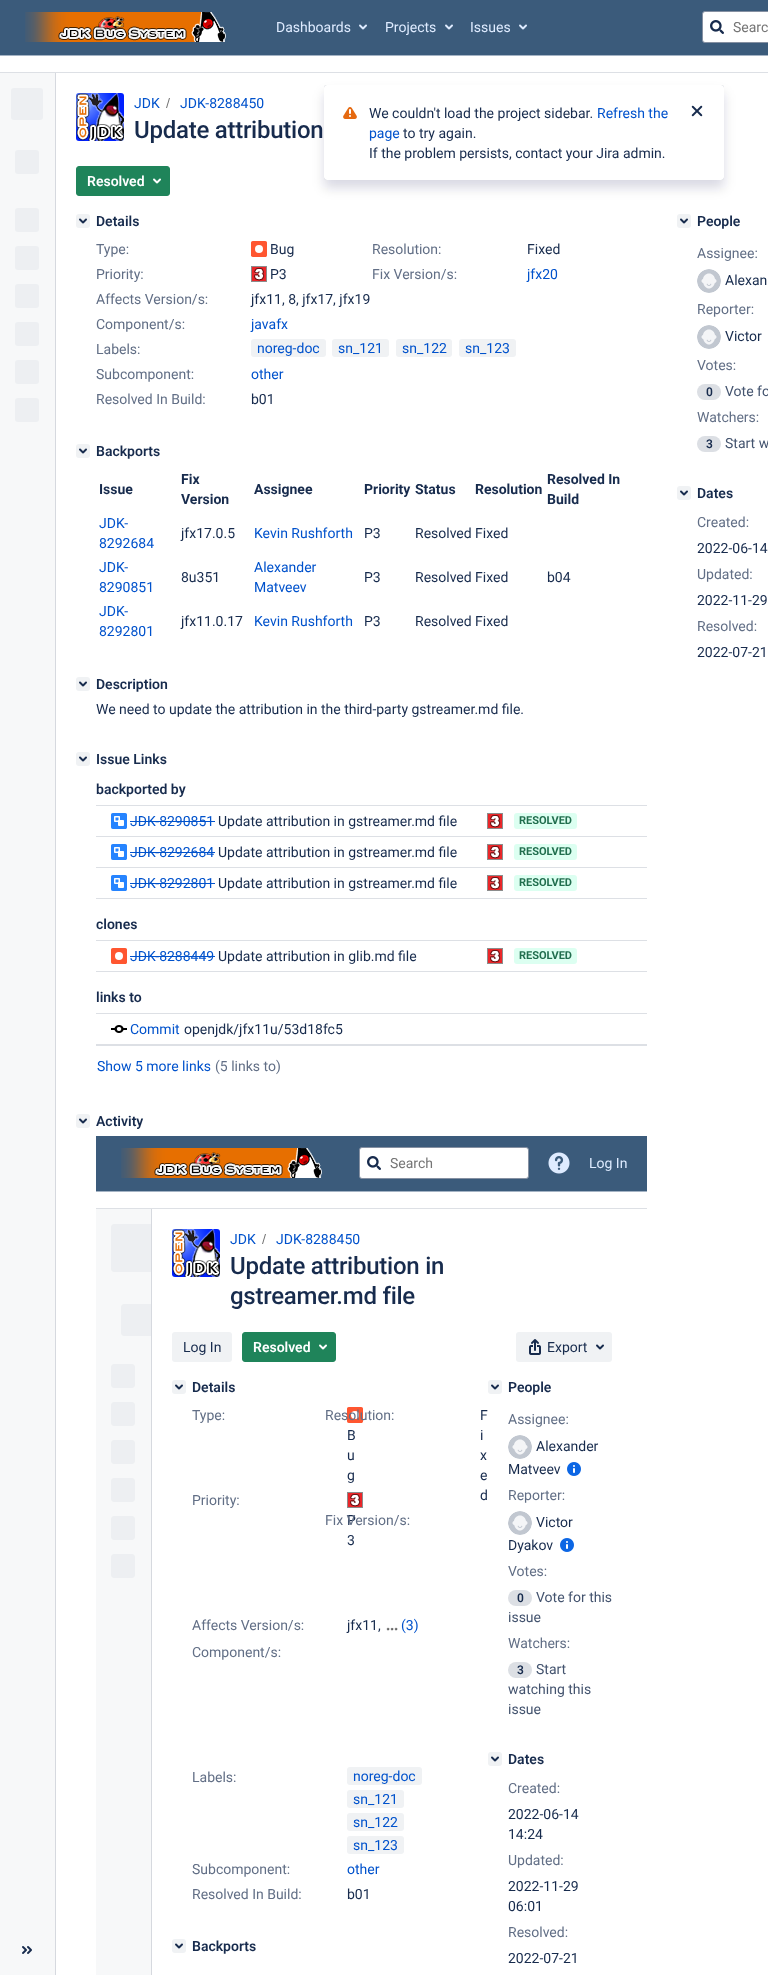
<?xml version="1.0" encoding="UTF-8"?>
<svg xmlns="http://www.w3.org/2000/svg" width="768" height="1975">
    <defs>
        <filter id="blur1" x="-50%" y="-200%" width="200%" height="500%"><feGaussianBlur stdDeviation="0.5"/></filter>
        <filter id="blur2" x="-50%" y="-200%" width="200%" height="500%"><feGaussianBlur stdDeviation="6"/></filter>
    </defs>
    <rect width="100%" height="100%" fill="#FFFFFF"/>
    <rect x="0" y="0" width="768" height="55" fill="#3B5B7B"/>
    <rect x="0" y="55" width="768" height="1" fill="#A4B3C4"/>
    <image x="25" y="12" width="201" height="30" href="img_01.png"/>
    <text x="276" y="32" font-family="Roboto" font-size="14" fill="#DEEBFF">Dashboards</text>
    <image x="359" y="24" width="8" height="6" href="img_02.png"/>
    <text x="385" y="32" font-family="Roboto" font-size="14" fill="#DEEBFF">Projects</text>
    <image x="445" y="24" width="8" height="6" href="img_02.png"/>
    <text x="470" y="32" font-family="Roboto" font-size="14" fill="#DEEBFF">Issues</text>
    <image x="519" y="24" width="8" height="6" href="img_02.png"/>
    <rect x="702.5" y="11.5" width="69" height="31" rx="2.5" fill="#FFFFFF" stroke="#8590A2"/>
    <image x="710" y="20" width="14" height="14" href="img_03.png"/>
    <text x="733" y="32" font-family="Roboto" font-size="14" fill="#757575">Searc</text>
    <rect x="0" y="72" width="768" height="1" fill="#DDE0E5"/>
    <rect x="0" y="73" width="55" height="1902" fill="#F7F8F9"/>
    <rect x="55" y="73" width="1" height="1902" fill="#D6D9DF"/>
    <rect x="11" y="88" width="32" height="32" rx="3" fill="#EDEFF2"/>
    <rect x="15" y="150" width="24" height="24" rx="3" fill="#EDEFF2"/>
    <rect x="15" y="208" width="24" height="24" rx="3" fill="#EDEFF2"/>
    <rect x="15" y="246" width="24" height="24" rx="3" fill="#EDEFF2"/>
    <rect x="15" y="284" width="24" height="24" rx="3" fill="#EDEFF2"/>
    <rect x="15" y="322" width="24" height="24" rx="3" fill="#EDEFF2"/>
    <rect x="15" y="360" width="24" height="24" rx="3" fill="#EDEFF2"/>
    <rect x="15" y="398" width="24" height="24" rx="3" fill="#EDEFF2"/>
    <image x="22" y="1946" width="10" height="8" href="img_04.png"/>
    <image x="76" y="93" width="48" height="48" href="img_05.png"/>
    <text x="134" y="108" font-family="Roboto" font-size="14" fill="#0052CC">JDK</text>
    <path d="M 167 108 L 170 98 H 169 L 166 108 Z" fill="#707070"/>
    <text x="180" y="108" font-family="Roboto" font-size="14" fill="#0052CC">JDK-8288450</text>
    <text x="134" y="138" font-family="Roboto" font-size="24" font-weight="500" letter-spacing="-0.25" fill="#172B4D">Update attribution</text>
    <rect x="76.5" y="166.5" width="93" height="29" rx="2.5" fill="#1F845A" stroke="#1F845A"/>
    <text x="87" y="186" font-family="Roboto" font-size="14" font-weight="600" fill="#FFFFFF">Resolved</text>
    <image x="153" y="178" width="8" height="6" href="img_06.png"/>
    <rect x="76" y="214" width="14" height="14" rx="3" fill="#F0F2F4"/>
    <image x="79" y="218" width="8" height="6" href="img_07.png"/>
    <text x="96" y="226" font-family="Roboto" font-size="14" font-weight="600" fill="#172B4D">Details</text>
    <text x="96" y="254" font-family="Roboto" font-size="14" fill="#626F86">Type:</text>
    <image x="251" y="241" width="16" height="16" href="img_08.png"/>
    <text x="270" y="254" font-family="Roboto" font-size="14" fill="#172B4D">Bug</text>
    <text x="372" y="254" font-family="Roboto" font-size="14" fill="#626F86">Resolution:</text>
    <text x="527" y="254" font-family="Roboto" font-size="14" fill="#172B4D">Fixed</text>
    <text x="96" y="279" font-family="Roboto" font-size="14" fill="#626F86">Priority:</text>
    <image x="251" y="266" width="16" height="16" href="img_09.png"/>
    <text x="270" y="279" font-family="Roboto" font-size="14" fill="#172B4D">P3</text>
    <text x="372" y="279" font-family="Roboto" font-size="14" fill="#626F86">Fix Version/s:</text>
    <text x="527" y="279" font-family="Roboto" font-size="14" fill="#0052CC">jfx20</text>
    <text x="96" y="304" font-family="Roboto" font-size="14" fill="#626F86">Affects Version/s:</text>
    <text x="251" y="304" font-family="Roboto" font-size="14" fill="#172B4D">jfx11, 8, jfx17, jfx19</text>
    <text x="96" y="329" font-family="Roboto" font-size="14" fill="#626F86">Component/s:</text>
    <text x="251" y="329" font-family="Roboto" font-size="14" fill="#0052CC">javafx</text>
    <text x="96" y="354" font-family="Roboto" font-size="14" fill="#626F86">Labels:</text>
    <rect x="251" y="339" width="75" height="18" rx="3" fill="#F0F2F4"/>
    <text x="257" y="353" font-family="Roboto" font-size="14" fill="#0052CC">noreg-doc</text>
    <rect x="332" y="339" width="57" height="18" rx="3" fill="#F0F2F4"/>
    <text x="338" y="353" font-family="Roboto" font-size="14" fill="#0052CC">sn_121</text>
    <rect x="396" y="339" width="56" height="18" rx="3" fill="#F0F2F4"/>
    <text x="402" y="353" font-family="Roboto" font-size="14" fill="#0052CC">sn_122</text>
    <rect x="459" y="339" width="57" height="18" rx="3" fill="#F0F2F4"/>
    <text x="465" y="353" font-family="Roboto" font-size="14" fill="#0052CC">sn_123</text>
    <text x="96" y="379" font-family="Roboto" font-size="14" fill="#626F86">Subcomponent:</text>
    <text x="251" y="379" font-family="Roboto" font-size="14" fill="#0052CC">other</text>
    <text x="96" y="404" font-family="Roboto" font-size="14" fill="#626F86">Resolved In Build:</text>
    <text x="251" y="404" font-family="Roboto" font-size="14" fill="#172B4D">b01</text>
    <rect x="76" y="444" width="14" height="14" rx="3" fill="#F0F2F4"/>
    <image x="79" y="448" width="8" height="6" href="img_07.png"/>
    <text x="96" y="456" font-family="Roboto" font-size="14" font-weight="600" fill="#172B4D">Backports</text>
    <text x="99" y="494" font-family="Roboto" font-size="14" font-weight="700" fill="#172B4D">Issue</text>
    <text font-family="Roboto" font-size="14" font-weight="700" fill="#172B4D">
        <tspan x="181" y="484">Fix</tspan>
        <tspan x="181" y="504">Version</tspan>
    </text>
    <text x="254" y="494" font-family="Roboto" font-size="14" font-weight="700" fill="#172B4D">Assignee</text>
    <text x="364" y="494" font-family="Roboto" font-size="14" font-weight="700" fill="#172B4D">Priority</text>
    <text x="415" y="494" font-family="Roboto" font-size="14" font-weight="700" fill="#172B4D">Status</text>
    <text x="475" y="494" font-family="Roboto" font-size="14" font-weight="700" fill="#172B4D">Resolution</text>
    <text font-family="Roboto" font-size="14" font-weight="700" fill="#172B4D">
        <tspan x="547" y="484">Resolved In</tspan>
        <tspan x="547" y="504">Build</tspan>
    </text>
    <text font-family="Roboto" font-size="14" fill="#0052CC">
        <tspan x="99" y="528">JDK-</tspan>
        <tspan x="99" y="548">8292684</tspan>
    </text>
    <text x="181" y="538" font-family="Roboto" font-size="14" fill="#172B4D">jfx17.0.5</text>
    <text x="254" y="538" font-family="Roboto" font-size="14" fill="#0052CC">Kevin Rushforth</text>
    <text x="364" y="538" font-family="Roboto" font-size="14" fill="#172B4D">P3</text>
    <text x="415" y="538" font-family="Roboto" font-size="14" fill="#172B4D">Resolved</text>
    <text x="475" y="538" font-family="Roboto" font-size="14" fill="#172B4D">Fixed</text>
    <text font-family="Roboto" font-size="14" fill="#0052CC">
        <tspan x="99" y="572">JDK-</tspan>
        <tspan x="99" y="592">8290851</tspan>
    </text>
    <text x="181" y="582" font-family="Roboto" font-size="14" fill="#172B4D">8u351</text>
    <text font-family="Roboto" font-size="14" fill="#0052CC">
        <tspan x="254" y="572">Alexander</tspan>
        <tspan x="254" y="592">Matveev</tspan>
    </text>
    <text x="364" y="582" font-family="Roboto" font-size="14" fill="#172B4D">P3</text>
    <text x="415" y="582" font-family="Roboto" font-size="14" fill="#172B4D">Resolved</text>
    <text x="475" y="582" font-family="Roboto" font-size="14" fill="#172B4D">Fixed</text>
    <text x="547" y="582" font-family="Roboto" font-size="14" fill="#172B4D">b04</text>
    <text font-family="Roboto" font-size="14" fill="#0052CC">
        <tspan x="99" y="616">JDK-</tspan>
        <tspan x="99" y="636">8292801</tspan>
    </text>
    <text x="181" y="626" font-family="Roboto" font-size="14" fill="#172B4D">jfx11.0.17</text>
    <text x="254" y="626" font-family="Roboto" font-size="14" fill="#0052CC">Kevin Rushforth</text>
    <text x="364" y="626" font-family="Roboto" font-size="14" fill="#172B4D">P3</text>
    <text x="415" y="626" font-family="Roboto" font-size="14" fill="#172B4D">Resolved</text>
    <text x="475" y="626" font-family="Roboto" font-size="14" fill="#172B4D">Fixed</text>
    <rect x="76" y="677" width="14" height="14" rx="3" fill="#F0F2F4"/>
    <image x="79" y="681" width="8" height="6" href="img_07.png"/>
    <text x="96" y="689" font-family="Roboto" font-size="14" font-weight="600" fill="#172B4D">Description</text>
    <text x="96" y="714" font-family="Roboto" font-size="14" fill="#172B4D">We need to update the attribution in the third-party gstreamer.md file.</text>
    <rect x="76" y="752" width="14" height="14" rx="3" fill="#F0F2F4"/>
    <image x="79" y="756" width="8" height="6" href="img_07.png"/>
    <text x="96" y="764" font-family="Roboto" font-size="14" font-weight="600" fill="#172B4D">Issue Links</text>
    <text x="96" y="794" font-family="Roboto" font-size="14" font-weight="600" fill="#172B4D">backported by</text>
    <rect x="96" y="805" width="551" height="1" fill="#DDE0E5"/>
    <rect x="96" y="836" width="551" height="1" fill="#DDE0E5"/>
    <image x="111" y="813" width="16" height="16" href="img_10.png"/>
    <text x="130" y="826" font-family="Roboto" font-size="14" fill="#0052CC">JDK-8290851</text>
    <rect x="130" y="821" width="85" height="1" fill="#0052CC"/>
    <text x="218" y="826" font-family="Roboto" font-size="14" fill="#172B4D">Update attribution in gstreamer.md file</text>
    <image x="487" y="813" width="16" height="16" href="img_09.png"/>
    <rect x="514" y="813" width="63" height="16" rx="3" fill="#DCFFF1"/>
    <text x="519" y="824" font-family="Roboto" font-size="11" font-weight="700" fill="#216E4E">RESOLVED</text>
    <rect x="96" y="867" width="551" height="1" fill="#DDE0E5"/>
    <image x="111" y="844" width="16" height="16" href="img_10.png"/>
    <text x="130" y="857" font-family="Roboto" font-size="14" fill="#0052CC">JDK-8292684</text>
    <rect x="130" y="852" width="85" height="1" fill="#0052CC"/>
    <text x="218" y="857" font-family="Roboto" font-size="14" fill="#172B4D">Update attribution in gstreamer.md file</text>
    <image x="487" y="844" width="16" height="16" href="img_09.png"/>
    <rect x="514" y="844" width="63" height="16" rx="3" fill="#DCFFF1"/>
    <text x="519" y="855" font-family="Roboto" font-size="11" font-weight="700" fill="#216E4E">RESOLVED</text>
    <rect x="96" y="898" width="551" height="1" fill="#DDE0E5"/>
    <image x="111" y="875" width="16" height="16" href="img_10.png"/>
    <text x="130" y="888" font-family="Roboto" font-size="14" fill="#0052CC">JDK-8292801</text>
    <rect x="130" y="883" width="85" height="1" fill="#0052CC"/>
    <text x="218" y="888" font-family="Roboto" font-size="14" fill="#172B4D">Update attribution in gstreamer.md file</text>
    <image x="487" y="875" width="16" height="16" href="img_09.png"/>
    <rect x="514" y="875" width="63" height="16" rx="3" fill="#DCFFF1"/>
    <text x="519" y="886" font-family="Roboto" font-size="11" font-weight="700" fill="#216E4E">RESOLVED</text>
    <text x="96" y="929" font-family="Roboto" font-size="14" font-weight="600" fill="#172B4D">clones</text>
    <rect x="96" y="940" width="551" height="1" fill="#DDE0E5"/>
    <rect x="96" y="971" width="551" height="1" fill="#DDE0E5"/>
    <image x="111" y="948" width="16" height="16" href="img_11.png"/>
    <text x="130" y="961" font-family="Roboto" font-size="14" fill="#0052CC">JDK-8288449</text>
    <rect x="130" y="956" width="85" height="1" fill="#0052CC"/>
    <text x="218" y="961" font-family="Roboto" font-size="14" fill="#172B4D">Update attribution in glib.md file</text>
    <image x="487" y="948" width="16" height="16" href="img_09.png"/>
    <rect x="514" y="948" width="63" height="16" rx="3" fill="#DCFFF1"/>
    <text x="519" y="959" font-family="Roboto" font-size="11" font-weight="700" fill="#216E4E">RESOLVED</text>
    <text x="96" y="1002" font-family="Roboto" font-size="14" font-weight="600" fill="#172B4D">links to</text>
    <rect x="96" y="1013" width="551" height="1" fill="#DDE0E5"/>
    <image x="111" y="1025" width="16" height="8" href="img_12.png"/>
    <text x="130" y="1034" font-family="Roboto" font-size="14" fill="#0052CC">Commit</text>
    <text x="184" y="1034" font-family="Roboto" font-size="14" fill="#172B4D">openjdk/jfx11u/53d18fc5</text>
    <rect x="96" y="1044" width="551" height="2" fill="#DDE0E5"/>
    <text x="97" y="1071" font-family="Roboto" font-size="14" fill="#0052CC">Show 5 more links</text>
    <text x="215" y="1071" font-family="Roboto" font-size="14" fill="#626F86">(5 links to)</text>
    <rect x="76" y="1114" width="14" height="14" rx="3" fill="#F0F2F4"/>
    <image x="79" y="1118" width="8" height="6" href="img_07.png"/>
    <text x="96" y="1126" font-family="Roboto" font-size="14" font-weight="600" fill="#172B4D">Activity</text>
    <rect x="96" y="1136" width="551" height="55" fill="#3B5B7B"/>
    <rect x="96" y="1191" width="551" height="1" fill="#A4B3C4"/>
    <image x="121" y="1148" width="201" height="30" href="img_01.png"/>
    <rect x="359.5" y="1147.5" width="169" height="31" rx="2.5" fill="#FFFFFF" stroke="#8590A2"/>
    <image x="367" y="1156" width="14" height="14" href="img_03.png"/>
    <text x="390" y="1168" font-family="Roboto" font-size="14" fill="#757575">Search</text>
    <image x="548" y="1152" width="22" height="22" href="img_13.png"/>
    <text x="589" y="1168" font-family="Roboto" font-size="14" fill="#DEEBFF">Log In</text>
    <rect x="96" y="1208" width="551" height="1" fill="#DDE0E5"/>
    <rect x="96" y="1209" width="55" height="766" fill="#F7F8F9"/>
    <rect x="151" y="1209" width="1" height="766" fill="#D6D9DF"/>
    <image x="111" y="1224" width="40" height="354" href="img_14.png"/>
    <image x="172" y="1229" width="48" height="48" href="img_05.png"/>
    <text x="230" y="1244" font-family="Roboto" font-size="14" fill="#0052CC">JDK</text>
    <path d="M 263 1244 L 266 1234 H 265 L 262 1244 Z" fill="#707070"/>
    <text x="276" y="1244" font-family="Roboto" font-size="14" fill="#0052CC">JDK-8288450</text>
    <text font-family="Roboto" font-size="24" font-weight="500" letter-spacing="-0.25" fill="#172B4D">
        <tspan x="230" y="1274">Update attribution in</tspan>
        <tspan x="230" y="1304">gstreamer.md file</tspan>
    </text>
    <rect x="172" y="1332" width="60" height="30" rx="3" fill="#F0F2F4"/>
    <text x="183" y="1352" font-family="Roboto" font-size="14" fill="#172B4D">Log In</text>
    <rect x="242.5" y="1332.5" width="93" height="29" rx="2.5" fill="#1F845A" stroke="#1F845A"/>
    <text x="253" y="1352" font-family="Roboto" font-size="14" font-weight="600" fill="#FFFFFF">Resolved</text>
    <image x="319" y="1344" width="8" height="6" href="img_06.png"/>
    <rect x="516" y="1332" width="96" height="30" rx="3" fill="#F0F2F4"/>
    <image x="529" y="1339" width="12" height="16" href="img_15.png"/>
    <text x="547" y="1352" font-family="Roboto" font-size="14" fill="#172B4D">Export</text>
    <image x="596" y="1344" width="8" height="6" href="img_16.png"/>
    <rect x="172" y="1380" width="14" height="14" rx="3" fill="#F0F2F4"/>
    <image x="175" y="1384" width="8" height="6" href="img_07.png"/>
    <text x="192" y="1392" font-family="Roboto" font-size="14" font-weight="600" fill="#172B4D">Details</text>
    <text x="192" y="1420" font-family="Roboto" font-size="14" fill="#626F86">Type:</text>
    <image x="347" y="1407" width="16" height="16" href="img_11.png"/>
    <text font-family="Roboto" font-size="14" fill="#172B4D">
        <tspan x="347" y="1440">B</tspan>
        <tspan x="347" y="1460">u</tspan>
        <tspan x="347" y="1480">g</tspan>
    </text>
    <text x="325" y="1420" font-family="Roboto" font-size="14" fill="#626F86">Resolution:</text>
    <text font-family="Roboto" font-size="14" fill="#172B4D">
        <tspan x="480" y="1420">F</tspan>
        <tspan x="480" y="1440">i</tspan>
        <tspan x="480" y="1460">x</tspan>
        <tspan x="480" y="1480">e</tspan>
        <tspan x="480" y="1500">d</tspan>
    </text>
    <text x="192" y="1505" font-family="Roboto" font-size="14" fill="#626F86">Priority:</text>
    <image x="347" y="1492" width="16" height="16" href="img_09.png"/>
    <text font-family="Roboto" font-size="14" fill="#172B4D">
        <tspan x="347" y="1525">P</tspan>
        <tspan x="347" y="1545">3</tspan>
    </text>
    <text x="325" y="1525" font-family="Roboto" font-size="14" fill="#626F86">Fix Version/s:</text>
    <text x="192" y="1630" font-family="Roboto" font-size="14" fill="#626F86">Affects Version/s:</text>
    <text x="347" y="1630" font-family="Roboto" font-size="14" fill="#172B4D">jfx11,</text>
    <image x="386" y="1627" width="12" height="4" href="img_17.png"/>
    <text x="401" y="1630" font-family="Roboto" font-size="14" fill="#0052CC">(3)</text>
    <text x="192" y="1657" font-family="Roboto" font-size="14" fill="#626F86">Component/s:</text>
    <text x="192" y="1782" font-family="Roboto" font-size="14" fill="#626F86">Labels:</text>
    <rect x="347" y="1767" width="75" height="18" rx="3" fill="#F0F2F4"/>
    <text x="353" y="1781" font-family="Roboto" font-size="14" fill="#0052CC">noreg-doc</text>
    <rect x="347" y="1790" width="57" height="18" rx="3" fill="#F0F2F4"/>
    <text x="353" y="1804" font-family="Roboto" font-size="14" fill="#0052CC">sn_121</text>
    <rect x="347" y="1813" width="57" height="18" rx="3" fill="#F0F2F4"/>
    <text x="353" y="1827" font-family="Roboto" font-size="14" fill="#0052CC">sn_122</text>
    <rect x="347" y="1836" width="57" height="18" rx="3" fill="#F0F2F4"/>
    <text x="353" y="1850" font-family="Roboto" font-size="14" fill="#0052CC">sn_123</text>
    <text x="192" y="1874" font-family="Roboto" font-size="14" fill="#626F86">Subcomponent:</text>
    <text x="347" y="1874" font-family="Roboto" font-size="14" fill="#0052CC">other</text>
    <text x="192" y="1899" font-family="Roboto" font-size="14" fill="#626F86">Resolved In Build:</text>
    <text x="347" y="1899" font-family="Roboto" font-size="14" fill="#172B4D">b01</text>
    <rect x="172" y="1939" width="14" height="14" rx="3" fill="#F0F2F4"/>
    <image x="175" y="1943" width="8" height="6" href="img_07.png"/>
    <text x="192" y="1951" font-family="Roboto" font-size="14" font-weight="600" fill="#172B4D">Backports</text>
    <rect x="488" y="1380" width="14" height="14" rx="3" fill="#F0F2F4"/>
    <image x="491" y="1384" width="8" height="6" href="img_07.png"/>
    <text x="508" y="1392" font-family="Roboto" font-size="14" font-weight="600" fill="#172B4D">People</text>
    <text x="508" y="1424" font-family="Roboto" font-size="14" fill="#626F86">Assignee:</text>
    <image x="508" y="1435" width="24" height="24" href="img_18.png"/>
    <text x="536" y="1451" font-family="Roboto" font-size="14" fill="#172B4D">Alexander</text>
    <text x="508" y="1474" font-family="Roboto" font-size="14" fill="#172B4D">Matveev</text>
    <image x="567" y="1462" width="14" height="14" href="img_19.png"/>
    <text x="508" y="1500" font-family="Roboto" font-size="14" fill="#626F86">Reporter:</text>
    <image x="508" y="1511" width="24" height="24" href="img_20.png"/>
    <text x="536" y="1527" font-family="Roboto" font-size="14" fill="#172B4D">Victor</text>
    <text x="508" y="1550" font-family="Roboto" font-size="14" fill="#172B4D">Dyakov</text>
    <image x="560" y="1538" width="14" height="14" href="img_19.png"/>
    <text x="508" y="1576" font-family="Roboto" font-size="14" fill="#626F86">Votes:</text>
    <rect x="508" y="1590" width="24" height="16" rx="8" fill="#DCDFE4"/>
    <text x="517" y="1602" font-family="Roboto" font-size="12" font-weight="600" fill="#172B4D">0</text>
    <text x="536" y="1602" font-family="Roboto" font-size="14" fill="#44546F">Vote for this</text>
    <text x="508" y="1622" font-family="Roboto" font-size="14" fill="#44546F">issue</text>
    <text x="508" y="1648" font-family="Roboto" font-size="14" fill="#626F86">Watchers:</text>
    <rect x="508" y="1662" width="24" height="16" rx="8" fill="#DCDFE4"/>
    <text x="517" y="1674" font-family="Roboto" font-size="12" font-weight="600" fill="#172B4D">3</text>
    <text x="536" y="1674" font-family="Roboto" font-size="14" fill="#44546F">Start</text>
    <text font-family="Roboto" font-size="14" fill="#44546F">
        <tspan x="508" y="1694">watching this</tspan>
        <tspan x="508" y="1714">issue</tspan>
    </text>
    <rect x="488" y="1752" width="14" height="14" rx="3" fill="#F0F2F4"/>
    <image x="491" y="1756" width="8" height="6" href="img_07.png"/>
    <text x="508" y="1764" font-family="Roboto" font-size="14" font-weight="600" fill="#172B4D">Dates</text>
    <text x="508" y="1793" font-family="Roboto" font-size="14" fill="#626F86">Created:</text>
    <text font-family="Roboto" font-size="14" fill="#172B4D">
        <tspan x="508" y="1819">2022-06-14</tspan>
        <tspan x="508" y="1839">14:24</tspan>
    </text>
    <text x="508" y="1865" font-family="Roboto" font-size="14" fill="#626F86">Updated:</text>
    <text font-family="Roboto" font-size="14" fill="#172B4D">
        <tspan x="508" y="1891">2022-11-29</tspan>
        <tspan x="508" y="1911">06:01</tspan>
    </text>
    <text x="508" y="1937" font-family="Roboto" font-size="14" fill="#626F86">Resolved:</text>
    <text x="508" y="1963" font-family="Roboto" font-size="14" fill="#172B4D">2022-07-21</text>
    <rect x="677" y="214" width="14" height="14" rx="3" fill="#F0F2F4"/>
    <image x="680" y="218" width="8" height="6" href="img_07.png"/>
    <text x="697" y="226" font-family="Roboto" font-size="14" font-weight="600" fill="#172B4D">People</text>
    <text x="697" y="258" font-family="Roboto" font-size="14" fill="#626F86">Assignee:</text>
    <image x="697" y="269" width="24" height="24" href="img_21.png"/>
    <text x="725" y="285" font-family="Roboto" font-size="14" fill="#172B4D">Alexan</text>
    <text x="697" y="314" font-family="Roboto" font-size="14" fill="#626F86">Reporter:</text>
    <image x="697" y="325" width="24" height="24" href="img_21.png"/>
    <text x="725" y="341" font-family="Roboto" font-size="14" fill="#172B4D">Victor</text>
    <text x="697" y="370" font-family="Roboto" font-size="14" fill="#626F86">Votes:</text>
    <rect x="697" y="384" width="24" height="16" rx="8" fill="#DCDFE4"/>
    <text x="706" y="396" font-family="Roboto" font-size="12" font-weight="600" fill="#172B4D">0</text>
    <text x="725" y="396" font-family="Roboto" font-size="14" fill="#44546F">Vote fo</text>
    <text x="697" y="422" font-family="Roboto" font-size="14" fill="#626F86">Watchers:</text>
    <rect x="697" y="436" width="24" height="16" rx="8" fill="#DCDFE4"/>
    <text x="706" y="448" font-family="Roboto" font-size="12" font-weight="600" fill="#172B4D">3</text>
    <text x="725" y="448" font-family="Roboto" font-size="14" fill="#44546F">Start w</text>
    <rect x="677" y="486" width="14" height="14" rx="3" fill="#F0F2F4"/>
    <image x="680" y="490" width="8" height="6" href="img_07.png"/>
    <text x="697" y="498" font-family="Roboto" font-size="14" font-weight="600" fill="#172B4D">Dates</text>
    <text x="697" y="527" font-family="Roboto" font-size="14" fill="#626F86">Created:</text>
    <text x="697" y="553" font-family="Roboto" font-size="14" fill="#172B4D">2022-06-14</text>
    <text x="697" y="579" font-family="Roboto" font-size="14" fill="#626F86">Updated:</text>
    <text x="697" y="605" font-family="Roboto" font-size="14" fill="#172B4D">2022-11-29</text>
    <text x="697" y="631" font-family="Roboto" font-size="14" fill="#626F86">Resolved:</text>
    <text x="697" y="657" font-family="Roboto" font-size="14" fill="#172B4D">2022-07-21</text>
    <rect x="324" y="85" width="400" height="95" rx="3" fill="#091E42" fill-opacity="0.31" filter="url(#blur1)"/>
    <rect x="324" y="93" width="400" height="95" rx="3" fill="#091E42" fill-opacity="0.15" filter="url(#blur2)"/>
    <rect x="324" y="85" width="400" height="95" rx="3" fill="#FFFFFF"/>
    <image x="343" y="107" width="14" height="12" href="img_22.png"/>
    <text x="369" y="118" font-family="Roboto" font-size="14" fill="#172B4D">We couldn't load the project sidebar.</text>
    <text x="597" y="118" font-family="Roboto" font-size="14" fill="#0052CC">Refresh the</text>
    <image x="691" y="105" width="12" height="12" href="img_23.png"/>
    <text x="369" y="138" font-family="Roboto" font-size="14" fill="#0052CC">page</text>
    <text x="403" y="138" font-family="Roboto" font-size="14" fill="#172B4D">to try again.</text>
    <text x="369" y="158" font-family="Roboto" font-size="14" fill="#172B4D">If the problem persists, contact your Jira admin.</text>
</svg>
